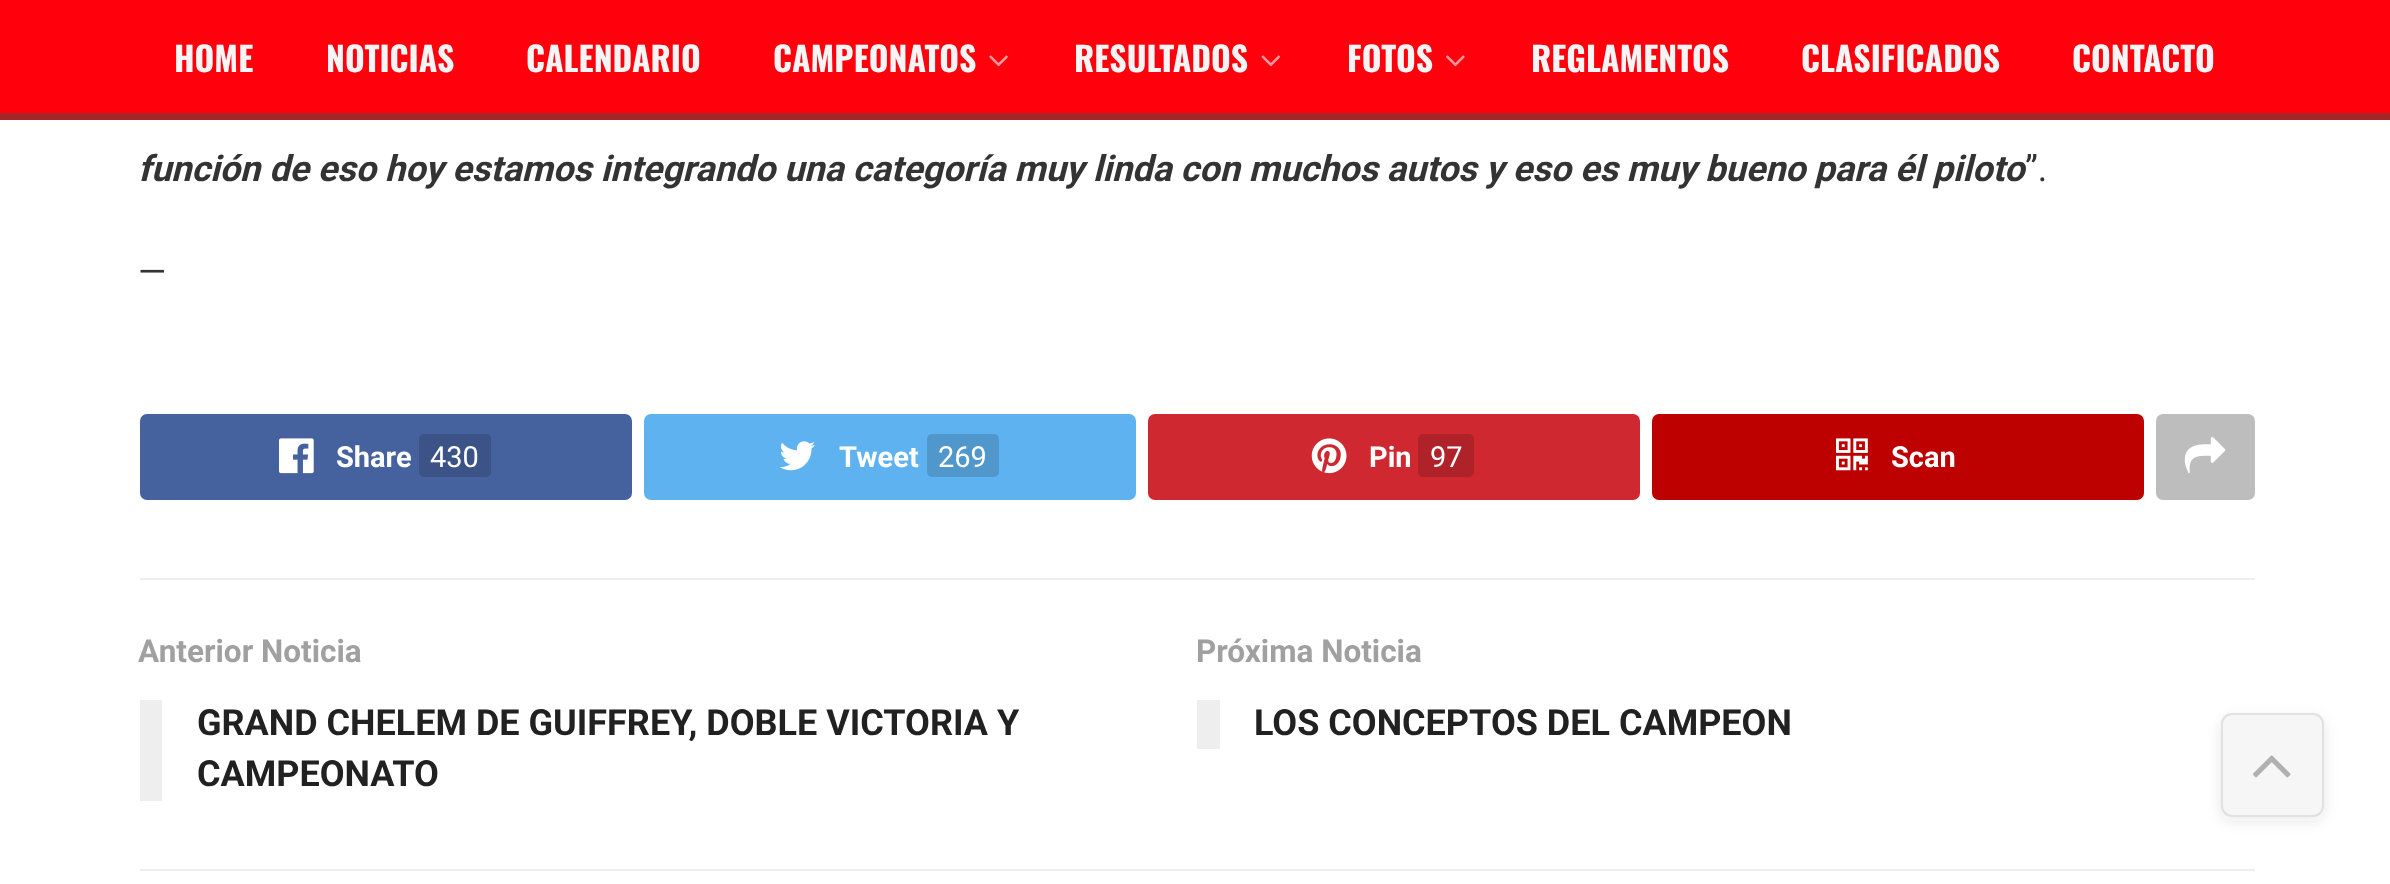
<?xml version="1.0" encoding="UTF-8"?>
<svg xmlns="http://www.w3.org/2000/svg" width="2390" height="884">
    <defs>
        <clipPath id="clip1"><path d="M 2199 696 H 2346 V 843 H 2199 Z M 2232 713 H 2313 C 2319 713 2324 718 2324 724 V 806 C 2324 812 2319 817 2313 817 H 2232 C 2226 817 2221 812 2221 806 V 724 C 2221 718 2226 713 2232 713 Z" clip-rule="evenodd"/></clipPath>
        <filter id="blur1" x="-50%" y="-200%" width="200%" height="500%"><feGaussianBlur stdDeviation="7"/></filter>
    </defs>
    <rect width="100%" height="100%" fill="#FFFFFF"/>
    <rect x="0" y="0" width="2390" height="113" fill="#FF000C"/>
    <rect x="0" y="113" width="2390" height="7" fill="#A52626"/>
    <text x="174" y="72" font-family="Oswald" font-size="33.75" font-weight="700" fill="#F5F5F5">HOME</text>
    <text x="326" y="72" font-family="Oswald" font-size="33.75" font-weight="700" fill="#F5F5F5">NOTICIAS</text>
    <text x="526" y="72" font-family="Oswald" font-size="33.75" font-weight="700" fill="#F5F5F5">CALENDARIO</text>
    <text x="773" y="72" font-family="Oswald" font-size="33.75" font-weight="700" fill="#F5F5F5">CAMPEONATOS</text>
    <image x="989" y="55" width="19" height="12" href="img_01.png"/>
    <text x="1074" y="72" font-family="Oswald" font-size="33.75" font-weight="700" fill="#F5F5F5">RESULTADOS</text>
    <image x="1261" y="55" width="20" height="12" href="img_02.png"/>
    <text x="1347" y="72" font-family="Oswald" font-size="33.75" font-weight="700" fill="#F5F5F5">FOTOS</text>
    <image x="1446" y="55" width="19" height="12" href="img_03.png"/>
    <text x="1531" y="72" font-family="Oswald" font-size="33.75" font-weight="700" fill="#F5F5F5">REGLAMENTOS</text>
    <text x="1801" y="72" font-family="Oswald" font-size="33.75" font-weight="700" fill="#F5F5F5">CLASIFICADOS</text>
    <text x="2072" y="72" font-family="Oswald" font-size="33.75" font-weight="700" fill="#F5F5F5">CONTACTO</text>
    <text x="138" y="181" font-family="Roboto" font-size="36" font-weight="700" font-style="italic" fill="#333333">función de eso hoy estamos integrando una categoría muy linda con muchos autos y eso es muy bueno para él piloto</text>
    <text x="2025" y="181" font-family="Roboto" font-size="36" fill="#333333">”.</text>
    <text x="138" y="284" font-family="Roboto" font-size="36" fill="#333333">—</text>
    <rect x="140" y="414" width="492" height="86" rx="7" fill="#45629F"/>
    <image x="279" y="438" width="35" height="36" href="img_04.png"/>
    <text x="336" y="467" font-family="Roboto" font-size="29" font-weight="700" fill="#FFFFFF">Share</text>
    <rect x="419" y="434" width="72" height="43" rx="5" fill="#3B5387"/>
    <text x="430" y="467" font-family="Roboto" font-size="29" fill="#FFFFFF">430</text>
    <rect x="644" y="414" width="492" height="86" rx="7" fill="#5EB2EF"/>
    <image x="779" y="441" width="36" height="30" href="img_05.png"/>
    <text x="839" y="467" font-family="Roboto" font-size="29" font-weight="700" fill="#FFFFFF">Tweet</text>
    <rect x="927" y="434" width="72" height="43" rx="5" fill="#5097CB"/>
    <text x="938" y="467" font-family="Roboto" font-size="29" fill="#FFFFFF">269</text>
    <rect x="1148" y="414" width="492" height="86" rx="7" fill="#CF2830"/>
    <image x="1311" y="438" width="36" height="36" href="img_06.png"/>
    <text x="1369" y="467" font-family="Roboto" font-size="29" font-weight="700" fill="#FFFFFF">Pin</text>
    <rect x="1418" y="434" width="56" height="43" rx="5" fill="#B02229"/>
    <text x="1430" y="467" font-family="Roboto" font-size="29" fill="#FFFFFF">97</text>
    <rect x="1652" y="414" width="492" height="86" rx="7" fill="#BD0000"/>
    <image x="1836" y="438" width="32" height="33" href="img_07.png"/>
    <text x="1891" y="467" font-family="Roboto" font-size="29" font-weight="700" fill="#FFFFFF">Scan</text>
    <rect x="2156" y="414" width="99" height="86" rx="7" fill="#BDBDBD"/>
    <image x="2184" y="437" width="42" height="36" href="img_08.png"/>
    <rect x="140" y="578" width="2115" height="2" fill="#EEEEEE"/>
    <rect x="140" y="869" width="2115" height="2" fill="#EEEEEE"/>
    <text x="138" y="662" font-family="Roboto" font-size="31.5" font-weight="700" fill="#A0A0A0">Anterior Noticia</text>
    <rect x="140" y="700" width="22" height="101" fill="#EEEEEE"/>
    <text font-family="Roboto" font-size="36" font-weight="700" fill="#212121">
        <tspan x="197" y="735">GRAND CHELEM DE GUIFFREY, DOBLE VICTORIA Y</tspan>
        <tspan x="197" y="786">CAMPEONATO</tspan>
    </text>
    <text x="1196" y="662" font-family="Roboto" font-size="31.5" font-weight="700" fill="#A0A0A0">Próxima Noticia</text>
    <rect x="1197" y="700" width="23" height="49" fill="#EEEEEE"/>
    <text x="1254" y="735" font-family="Roboto" font-size="36" font-weight="700" fill="#212121">LOS CONCEPTOS DEL CAMPEON</text>
    <g clip-path="url(#clip1)">
        <rect x="2221" y="718" width="103" height="103" rx="11" fill="#333333" fill-opacity="0.1" filter="url(#blur1)"/>
    </g>
    <rect x="2221" y="713" width="103" height="104" rx="11" fill="#C4C4C4" fill-opacity="0.15"/>
    <rect x="2222" y="714" width="101" height="102" rx="10" fill="none" stroke="#333333" stroke-opacity="0.11" stroke-width="2"/>
    <image x="2253" y="755" width="38" height="23" href="img_09.png"/>
</svg>
